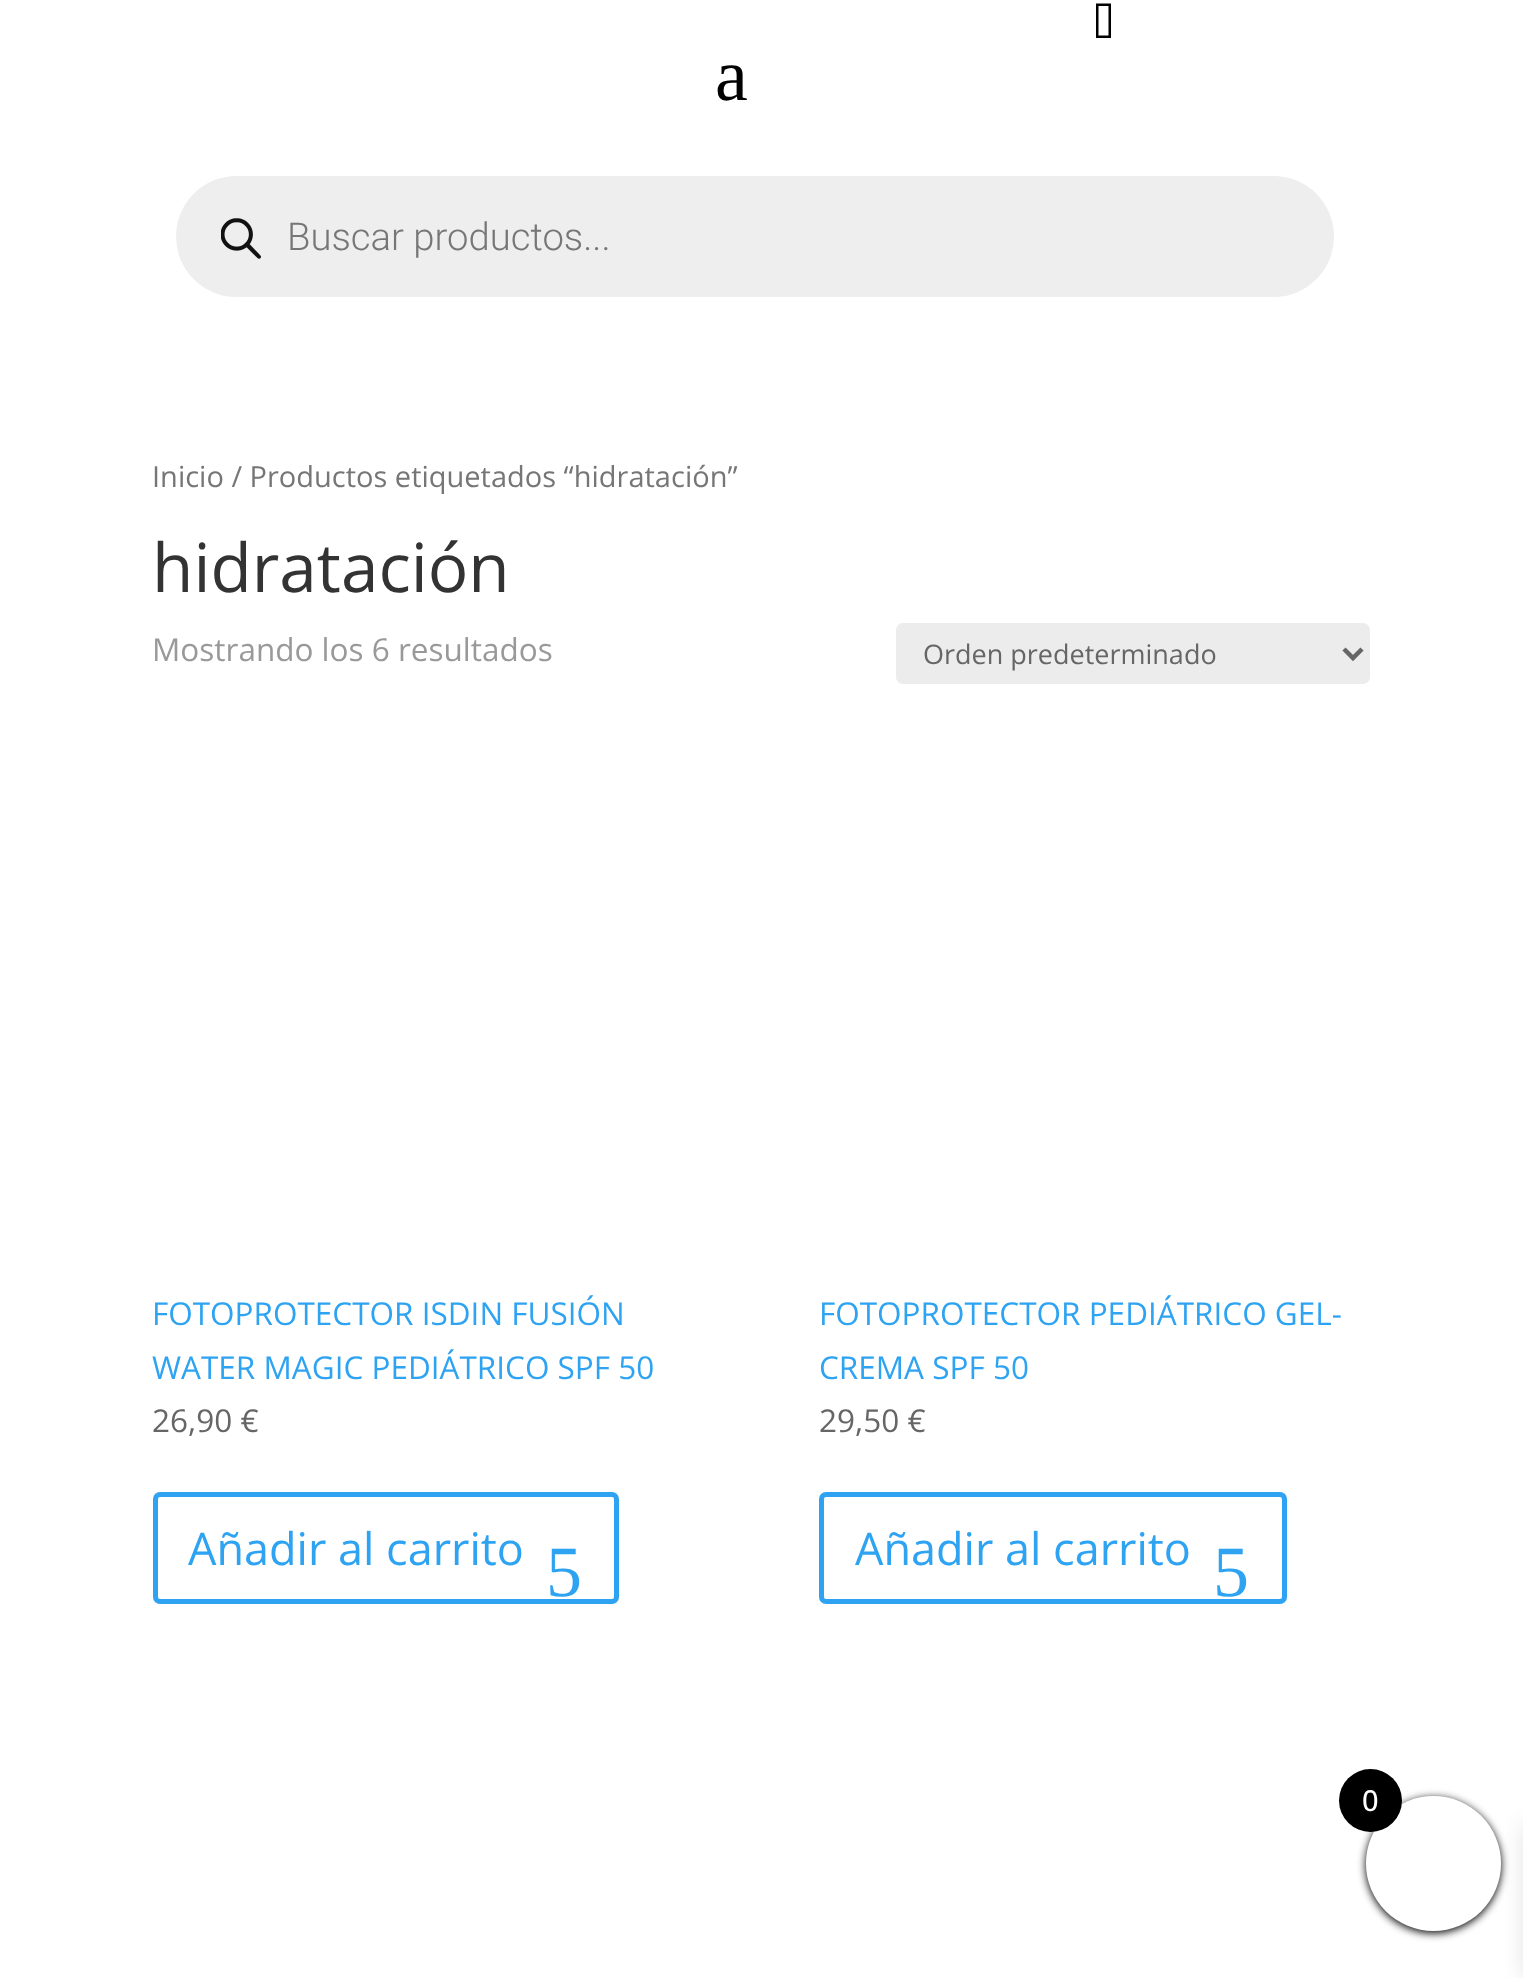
<?xml version="1.0" encoding="UTF-8"?>
<svg xmlns="http://www.w3.org/2000/svg" width="1523" height="1978">
    <defs>
        <filter id="blur1" x="-50%" y="-200%" width="200%" height="500%"><feGaussianBlur stdDeviation="4.5"/></filter>
        <filter id="blur2" x="-50%" y="-200%" width="200%" height="500%"><feGaussianBlur stdDeviation="11"/></filter>
    </defs>
    <rect width="100%" height="100%" fill="#FFFFFF"/>
    <path d="M 1098.5 35.5 V 6 H 1108.5 V 35.5 Z M 1096 38 H 1111 V 3.5 H 1096 Z" fill="#000000"/>
    <text x="715" y="100" font-family="Liberation Serif" font-size="74" fill="#000000">a</text>
    <rect x="176" y="176" width="1158" height="121" rx="60.5" fill="#EEEEEE"/>
    <image x="221" y="218" width="40" height="41" href="img_01.png"/>
    <text x="287" y="250" font-family="Roboto" font-size="38.25" font-weight="300" fill="#767676">Buscar productos...</text>
    <text x="152" y="487" font-family="Open Sans" font-size="29" fill="#767676">Inicio / Productos etiquetados “hidratación”</text>
    <text x="152" y="592" font-family="Open Sans" font-size="67.5" fill="#333333">hidratación</text>
    <text x="152" y="661" font-family="Open Sans" font-size="31.5" fill="#999999">Mostrando los 6 resultados</text>
    <rect x="896" y="623" width="474" height="61" rx="7" fill="#ECECEC"/>
    <path d="M 1344 649 L 1353 658 L 1362 649" fill="none" stroke="#666666" stroke-width="4.5"/>
    <text x="923" y="664" font-family="Open Sans" font-size="27" fill="#666666">Orden predeterminado</text>
    <text font-family="Open Sans" font-size="31.5" fill="#2EA3F2">
        <tspan x="152" y="1325">FOTOPROTECTOR ISDIN FUSIÓN</tspan>
        <tspan x="152" y="1379">WATER MAGIC PEDIÁTRICO SPF 50</tspan>
    </text>
    <text x="152" y="1432" font-family="Open Sans" font-size="31.5" fill="#666666">26,90 €</text>
    <rect x="155.5" y="1494.5" width="461" height="107" rx="4.5" fill="none" stroke="#2EA3F2" stroke-width="5"/>
    <text x="188" y="1565" font-family="Open Sans" font-size="45" fill="#2EA3F2">Añadir al carrito</text>
    <text x="546" y="1596" font-family="Liberation Serif" font-size="72" fill="#2EA3F2">5</text>
    <text font-family="Open Sans" font-size="31.5" fill="#2EA3F2">
        <tspan x="819" y="1325">FOTOPROTECTOR PEDIÁTRICO GEL-</tspan>
        <tspan x="819" y="1379">CREMA SPF 50</tspan>
    </text>
    <text x="819" y="1432" font-family="Open Sans" font-size="31.5" fill="#666666">29,50 €</text>
    <rect x="821.5" y="1494.5" width="463" height="107" rx="4.5" fill="none" stroke="#2EA3F2" stroke-width="5"/>
    <text x="855" y="1565" font-family="Open Sans" font-size="45" fill="#2EA3F2">Añadir al carrito</text>
    <text x="1213" y="1596" font-family="Liberation Serif" font-size="72" fill="#2EA3F2">5</text>
    <rect x="1366" y="1798" width="135" height="135" rx="67.5" fill="#000000" filter="url(#blur1)"/>
    <rect x="1523" y="1825" width="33" height="153" fill="#000000" fill-opacity="0.1" filter="url(#blur2)"/>
    <circle cx="1433.5" cy="1863.5" r="67.5" fill="#FFFFFF"/>
    <circle cx="1370.5" cy="1800.5" r="31.5" fill="#000000"/>
    <text x="1362" y="1811" font-family="Open Sans" font-size="29" font-weight="500" fill="#FFFFFF">0</text>
</svg>
